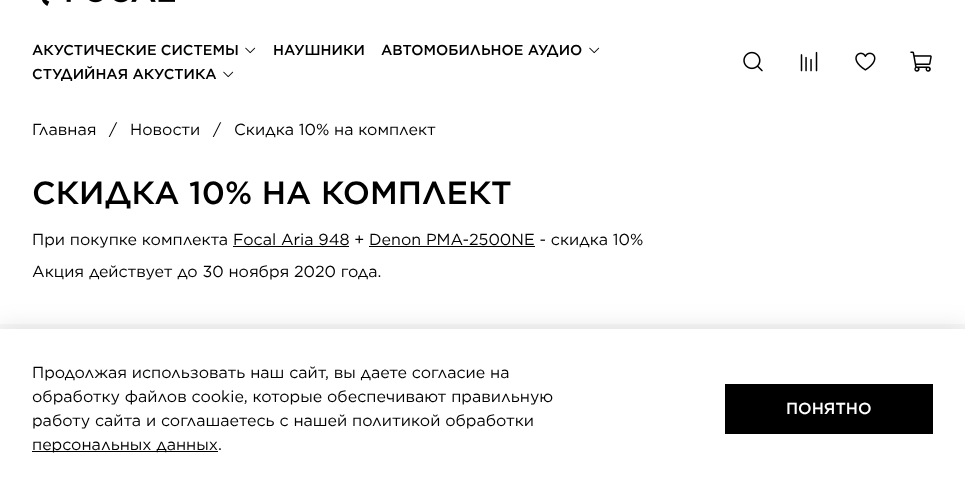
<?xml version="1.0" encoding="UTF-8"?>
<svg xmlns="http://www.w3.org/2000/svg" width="965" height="489">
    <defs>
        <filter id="blur1" x="-50%" y="-200%" width="200%" height="500%"><feGaussianBlur stdDeviation="11.5"/></filter>
    </defs>
    <rect width="100%" height="100%" fill="#FFFFFF"/>
    <image x="42" y="0" width="133" height="6" href="img_01.png"/>
    <text x="32" y="55" font-family="Gotham" font-size="14.4" font-weight="500" fill="#000000">АКУСТИЧЕСКИЕ СИСТЕМЫ</text>
    <image x="245" y="47" width="11" height="7" href="img_02.png"/>
    <text x="273" y="55" font-family="Gotham" font-size="14.4" font-weight="500" fill="#000000">НАУШНИКИ</text>
    <text x="381" y="55" font-family="Gotham" font-size="14.4" font-weight="500" fill="#000000">АВТОМОБИЛЬНОЕ АУДИО</text>
    <image x="589" y="47" width="11" height="7" href="img_02.png"/>
    <text x="32" y="79" font-family="Gotham" font-size="14.4" font-weight="500" fill="#000000">СТУДИЙНАЯ АКУСТИКА</text>
    <image x="223" y="71" width="11" height="7" href="img_02.png"/>
    <image x="743" y="51" width="20" height="21" href="img_03.png"/>
    <image x="800" y="51" width="18" height="21" href="img_04.png"/>
    <image x="855" y="52" width="21" height="19" href="img_05.png"/>
    <image x="910" y="51" width="22" height="21" href="img_06.png"/>
    <text x="32" y="135" font-family="Gotham" font-size="16" fill="#000000">Главная</text>
    <text x="109" y="135" font-family="Gotham" font-size="16" fill="#000000">/</text>
    <text x="130" y="135" font-family="Gotham" font-size="16" fill="#000000">Новости</text>
    <text x="213" y="135" font-family="Gotham" font-size="16" fill="#000000">/</text>
    <text x="234" y="135" font-family="Gotham" font-size="16" fill="#000000">Скидка 10% на комплект</text>
    <text x="32" y="204" font-family="Gotham" font-size="32" font-weight="500" fill="#000000">СКИДКА 10% НА КОМПЛЕКТ</text>
    <text x="32" y="245" font-family="Gotham" font-size="16" fill="#000000">При покупке комплекта Focal Aria 948 + Denon PMA-2500NE - скидка 10%</text>
    <rect x="233" y="246" width="116" height="1" fill="#000000"/>
    <rect x="369" y="246" width="166" height="1" fill="#000000"/>
    <text x="32" y="277" font-family="Gotham" font-size="16" fill="#000000">Акция действует до 30 ноября 2020 года.</text>
    <rect x="0" y="324" width="965" height="5" fill="#F8F8F8"/>
    <rect x="-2" y="326" width="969" height="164" fill="#000000" fill-opacity="0.09" filter="url(#blur1)"/>
    <rect x="0" y="329" width="965" height="160" fill="#FFFFFF"/>
    <text font-family="Gotham" font-size="16" fill="#000000">
        <tspan x="32" y="378">Продолжая использовать наш сайт, вы даете согласие на</tspan>
        <tspan x="32" y="402">обработку файлов cookie, которые обеспечивают правильную</tspan>
        <tspan x="32" y="426">работу сайта и соглашаетесь с нашей политикой обработки</tspan>
    </text>
    <rect x="32" y="451" width="186" height="1" fill="#000000"/>
    <text x="32" y="450" font-family="Gotham" font-size="16" fill="#000000">персональных данных.</text>
    <rect x="725" y="384" width="208" height="50" fill="#000000"/>
    <text x="786" y="414" font-family="Gotham" font-size="16" font-weight="500" fill="#FFFFFF">ПОНЯТНО</text>
</svg>
